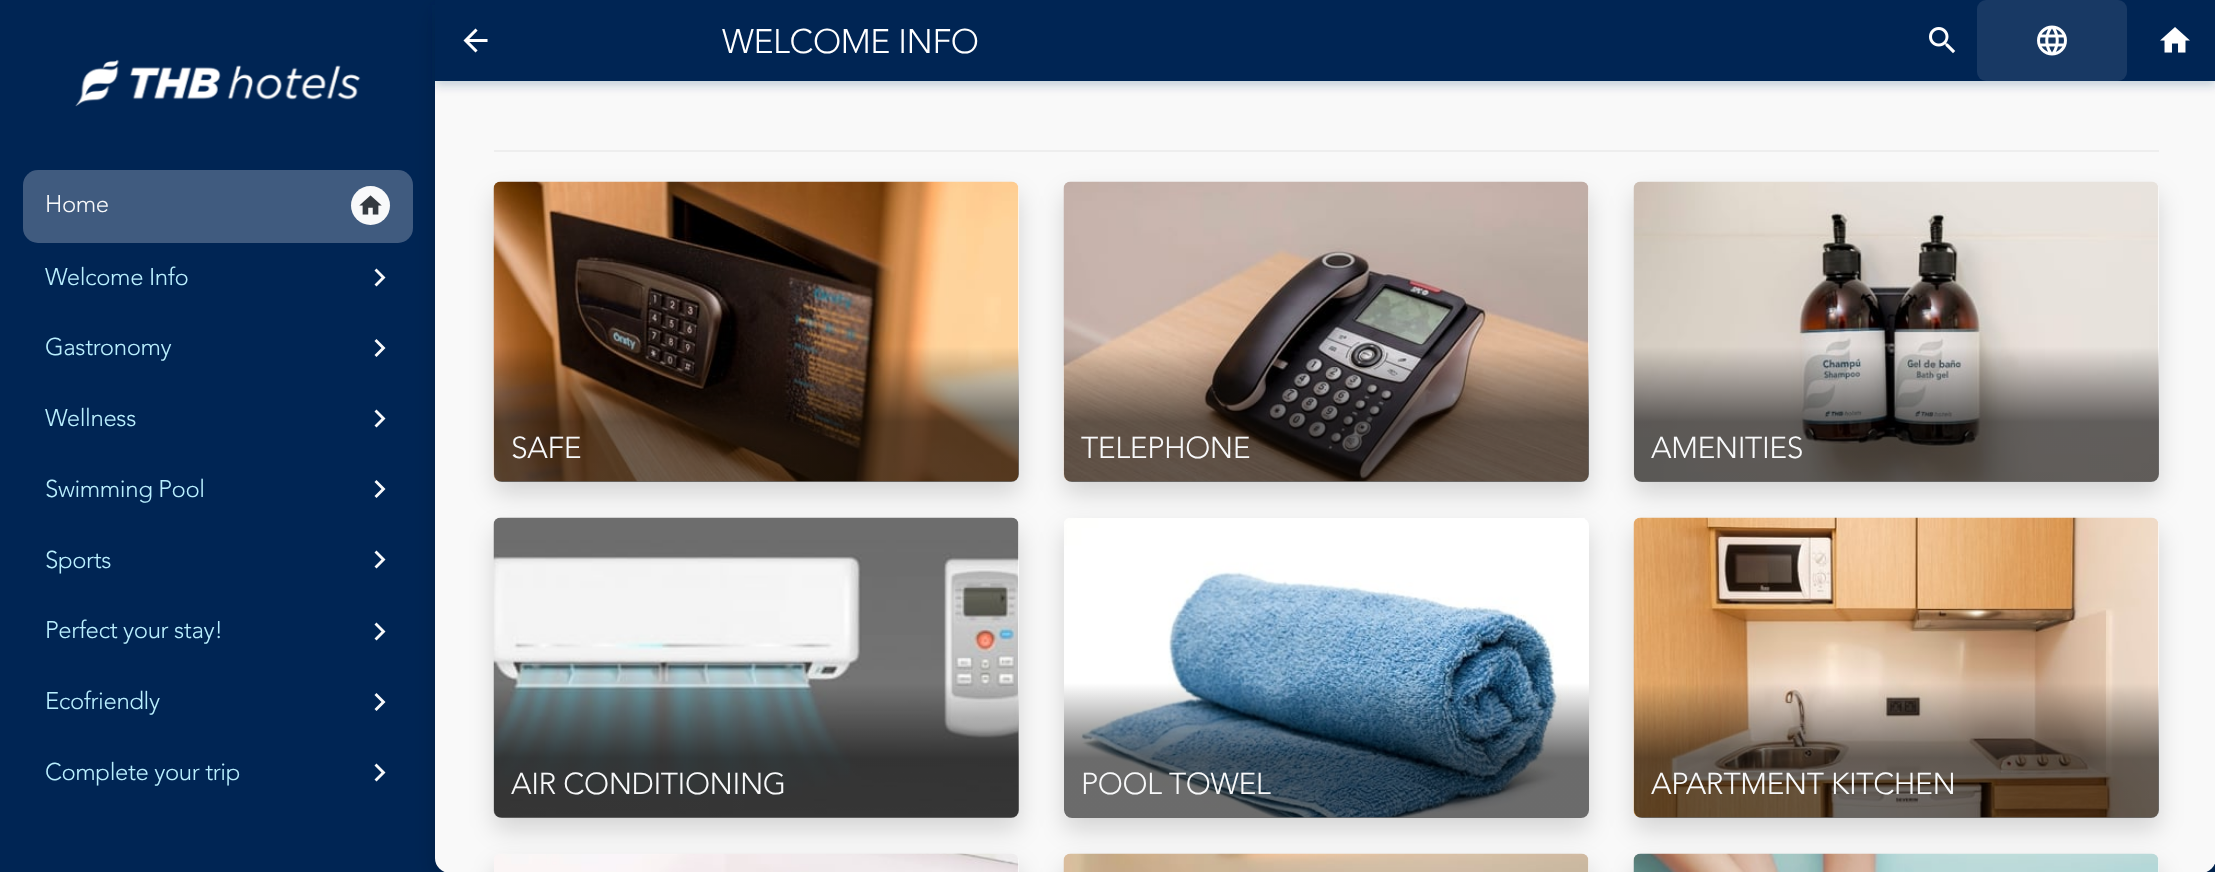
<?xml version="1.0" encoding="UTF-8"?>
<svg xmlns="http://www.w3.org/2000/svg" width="2215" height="872">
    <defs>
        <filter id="blur1" x="-50%" y="-200%" width="200%" height="500%"><feGaussianBlur stdDeviation="11"/></filter>
        <filter id="blur2" x="-50%" y="-200%" width="200%" height="500%"><feGaussianBlur stdDeviation="5"/></filter>
        <filter id="blur3" x="-50%" y="-200%" width="200%" height="500%"><feGaussianBlur stdDeviation="12"/></filter>
        <linearGradient id="g1" gradientUnits="userSpaceOnUse" x1="756" y1="181" x2="756" y2="482"><stop offset="0.55" stop-color="#000000" stop-opacity="0"/><stop offset="0.8" stop-color="#000000" stop-opacity="0.58"/></linearGradient>
        <linearGradient id="g2" gradientUnits="userSpaceOnUse" x1="1326" y1="181" x2="1326" y2="482"><stop offset="0.55" stop-color="#000000" stop-opacity="0"/><stop offset="0.8" stop-color="#000000" stop-opacity="0.58"/></linearGradient>
        <linearGradient id="g3" gradientUnits="userSpaceOnUse" x1="1896" y1="181" x2="1896" y2="482"><stop offset="0.55" stop-color="#000000" stop-opacity="0"/><stop offset="0.8" stop-color="#000000" stop-opacity="0.58"/></linearGradient>
        <linearGradient id="g4" gradientUnits="userSpaceOnUse" x1="756" y1="518" x2="756" y2="818"><stop offset="0.55" stop-color="#000000" stop-opacity="0"/><stop offset="0.8" stop-color="#000000" stop-opacity="0.58"/></linearGradient>
        <linearGradient id="g5" gradientUnits="userSpaceOnUse" x1="1326" y1="518" x2="1326" y2="818"><stop offset="0.55" stop-color="#000000" stop-opacity="0"/><stop offset="0.8" stop-color="#000000" stop-opacity="0.58"/></linearGradient>
        <linearGradient id="g6" gradientUnits="userSpaceOnUse" x1="1896" y1="518" x2="1896" y2="818"><stop offset="0.55" stop-color="#000000" stop-opacity="0"/><stop offset="0.8" stop-color="#000000" stop-opacity="0.58"/></linearGradient>
    </defs>
    <rect width="100%" height="100%" fill="#002554"/>
    <image x="75" y="59" width="286" height="48" href="img_01.png"/>
    <rect x="435" y="8" width="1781" height="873" rx="15" fill="#000000" fill-opacity="0.2" filter="url(#blur1)"/>
    <rect x="23" y="170" width="390" height="73" rx="15" fill="#405B7F"/>
    <text x="45" y="212" font-family="Avenir" font-size="24" font-weight="300" letter-spacing="-0.4" fill="#F8F9FA">Home</text>
    <circle cx="370.5" cy="205.5" r="19.5" fill="#F8F9FA"/>
    <image x="359" y="195" width="23" height="20" href="img_02.png"/>
    <text x="45" y="285" font-family="Avenir" font-size="24" font-weight="300" letter-spacing="-0.4" fill="#B9EFFE">Welcome Info</text>
    <path d="M 374.5 284.5 L 381.5 277.5 L 374.5 270.5 L 376.5 268.5 L 385.5 277.5 L 376.5 286.5 Z" fill="#F8F9FA"/>
    <text x="45" y="355" font-family="Avenir" font-size="24" font-weight="300" letter-spacing="-0.4" fill="#B9EFFE">Gastronomy</text>
    <path d="M 374.5 355 L 381.5 348 L 374.5 341 L 376.5 339 L 385.5 348 L 376.5 357 Z" fill="#F8F9FA"/>
    <text x="45" y="426" font-family="Avenir" font-size="24" font-weight="300" letter-spacing="-0.4" fill="#B9EFFE">Wellness</text>
    <path d="M 374.5 425.5 L 381.5 418.5 L 374.5 411.5 L 376.5 409.5 L 385.5 418.5 L 376.5 427.5 Z" fill="#F8F9FA"/>
    <text x="45" y="497" font-family="Avenir" font-size="24" font-weight="300" letter-spacing="-0.4" fill="#B9EFFE">Swimming Pool</text>
    <path d="M 374.5 496 L 381.5 489 L 374.5 482 L 376.5 480 L 385.5 489 L 376.5 498 Z" fill="#F8F9FA"/>
    <text x="45" y="568" font-family="Avenir" font-size="24" font-weight="300" letter-spacing="-0.4" fill="#B9EFFE">Sports</text>
    <path d="M 374.5 566.5 L 381.5 559.5 L 374.5 552.5 L 376.5 550.5 L 385.5 559.5 L 376.5 568.5 Z" fill="#F8F9FA"/>
    <text x="45" y="638" font-family="Avenir" font-size="24" font-weight="300" letter-spacing="-0.4" fill="#B9EFFE">Perfect your stay!</text>
    <path d="M 374.5 638.5 L 381.5 631.5 L 374.5 624.5 L 376.5 622.5 L 385.5 631.5 L 376.5 640.5 Z" fill="#F8F9FA"/>
    <text x="45" y="709" font-family="Avenir" font-size="24" font-weight="300" letter-spacing="-0.4" fill="#B9EFFE">Ecofriendly</text>
    <path d="M 374.5 709 L 381.5 702 L 374.5 695 L 376.5 693 L 385.5 702 L 376.5 711 Z" fill="#F8F9FA"/>
    <text x="45" y="780" font-family="Avenir" font-size="24" font-weight="300" letter-spacing="-0.4" fill="#B9EFFE">Complete your trip</text>
    <path d="M 374.5 779.5 L 381.5 772.5 L 374.5 765.5 L 376.5 763.5 L 385.5 772.5 L 376.5 781.5 Z" fill="#F8F9FA"/>
    <rect x="435" y="0" width="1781" height="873" rx="15" fill="#F9F9F9"/>
    <rect x="435" y="5" width="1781" height="81" fill="#003167" fill-opacity="0.2" filter="url(#blur2)"/>
    <rect x="435" y="0" width="1780" height="81" fill="#002554"/>
    <image x="463" y="28" width="25" height="25" href="img_03.png"/>
    <text x="722" y="53" font-family="Avenir" font-size="33.75" font-weight="300" letter-spacing="-0.4" fill="#FFFFFF">WELCOME INFO</text>
    <image x="1929" y="27" width="27" height="27" href="img_04.png"/>
    <rect x="1977" y="0" width="150" height="81" rx="9" fill="#183964"/>
    <image x="2037" y="25" width="30" height="31" href="img_05.png"/>
    <image x="2160" y="27" width="30" height="26" href="img_06.png"/>
    <rect x="494" y="150" width="1665" height="2" fill="#EEEEEE"/>
    <rect x="494" y="194" width="525" height="300" rx="8" fill="#000000" fill-opacity="0.15" filter="url(#blur3)"/>
    <rect x="494" y="182" width="525" height="300" rx="8" fill="#FFFFFF"/>
    <image x="493" y="181" width="526" height="301" href="img_07.png"/>
    <rect x="494" y="182" width="525" height="300" rx="8" fill="url(#g1)"/>
    <text x="511" y="458" font-family="Avenir" font-size="30" font-weight="300" letter-spacing="-0.4" fill="#F8F9FA">SAFE</text>
    <rect x="1064" y="194" width="525" height="300" rx="8" fill="#000000" fill-opacity="0.15" filter="url(#blur3)"/>
    <rect x="1064" y="182" width="525" height="300" rx="8" fill="#FFFFFF"/>
    <image x="1063" y="181" width="526" height="301" href="img_08.png"/>
    <rect x="1064" y="182" width="525" height="300" rx="8" fill="url(#g2)"/>
    <text x="1081" y="458" font-family="Avenir" font-size="30" font-weight="300" letter-spacing="-0.4" fill="#F8F9FA">TELEPHONE</text>
    <rect x="1634" y="194" width="525" height="300" rx="8" fill="#000000" fill-opacity="0.15" filter="url(#blur3)"/>
    <rect x="1634" y="182" width="525" height="300" rx="8" fill="#FFFFFF"/>
    <image x="1633" y="181" width="526" height="301" href="img_09.png"/>
    <rect x="1634" y="182" width="525" height="300" rx="8" fill="url(#g3)"/>
    <text x="1651" y="458" font-family="Avenir" font-size="30" font-weight="300" letter-spacing="-0.4" fill="#F8F9FA">AMENITIES</text>
    <rect x="494" y="530" width="525" height="300" rx="8" fill="#000000" fill-opacity="0.15" filter="url(#blur3)"/>
    <rect x="494" y="518" width="525" height="300" rx="8" fill="#FFFFFF"/>
    <image x="493" y="517" width="526" height="301" href="img_10.png"/>
    <rect x="494" y="518" width="525" height="300" rx="8" fill="url(#g4)"/>
    <text x="511" y="794" font-family="Avenir" font-size="30" font-weight="300" letter-spacing="-0.4" fill="#F8F9FA">AIR CONDITIONING</text>
    <rect x="1064" y="530" width="525" height="300" rx="8" fill="#000000" fill-opacity="0.15" filter="url(#blur3)"/>
    <rect x="1064" y="518" width="525" height="300" rx="8" fill="#FFFFFF"/>
    <image x="1064" y="518" width="521" height="300" href="img_11.png"/>
    <rect x="1064" y="518" width="525" height="300" rx="8" fill="url(#g5)"/>
    <text x="1081" y="794" font-family="Avenir" font-size="30" font-weight="300" letter-spacing="-0.4" fill="#F8F9FA">POOL TOWEL</text>
    <rect x="1634" y="530" width="525" height="300" rx="8" fill="#000000" fill-opacity="0.15" filter="url(#blur3)"/>
    <rect x="1634" y="518" width="525" height="300" rx="8" fill="#FFFFFF"/>
    <image x="1633" y="517" width="526" height="301" href="img_12.png"/>
    <rect x="1634" y="518" width="525" height="300" rx="8" fill="url(#g6)"/>
    <text x="1651" y="794" font-family="Avenir" font-size="30" font-weight="300" letter-spacing="-0.4" fill="#F8F9FA">APARTMENT KITCHEN</text>
    <rect x="494" y="866" width="525" height="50" rx="8" fill="#000000" fill-opacity="0.15" filter="url(#blur3)"/>
    <path d="M 502 854 H 1011 C 1015.5 854 1019 857.5 1019 862 V 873 H 494 V 862 C 494 857.5 497.5 854 502 854 Z" fill="#FFFFFF"/>
    <image x="494" y="853" width="525" height="19" href="img_13.png"/>
    <rect x="1064" y="866" width="525" height="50" rx="8" fill="#000000" fill-opacity="0.15" filter="url(#blur3)"/>
    <path d="M 1072 854 H 1581 C 1585.5 854 1589 857.5 1589 862 V 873 H 1064 V 862 C 1064 857.5 1067.5 854 1072 854 Z" fill="#FFFFFF"/>
    <image x="1063" y="853" width="526" height="19" href="img_14.png"/>
    <rect x="1634" y="866" width="525" height="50" rx="8" fill="#000000" fill-opacity="0.15" filter="url(#blur3)"/>
    <path d="M 1642 854 H 2151 C 2155.5 854 2159 857.5 2159 862 V 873 H 1634 V 862 C 1634 857.5 1637.5 854 1642 854 Z" fill="#FFFFFF"/>
    <image x="1633" y="853" width="526" height="19" href="img_15.png"/>
</svg>
